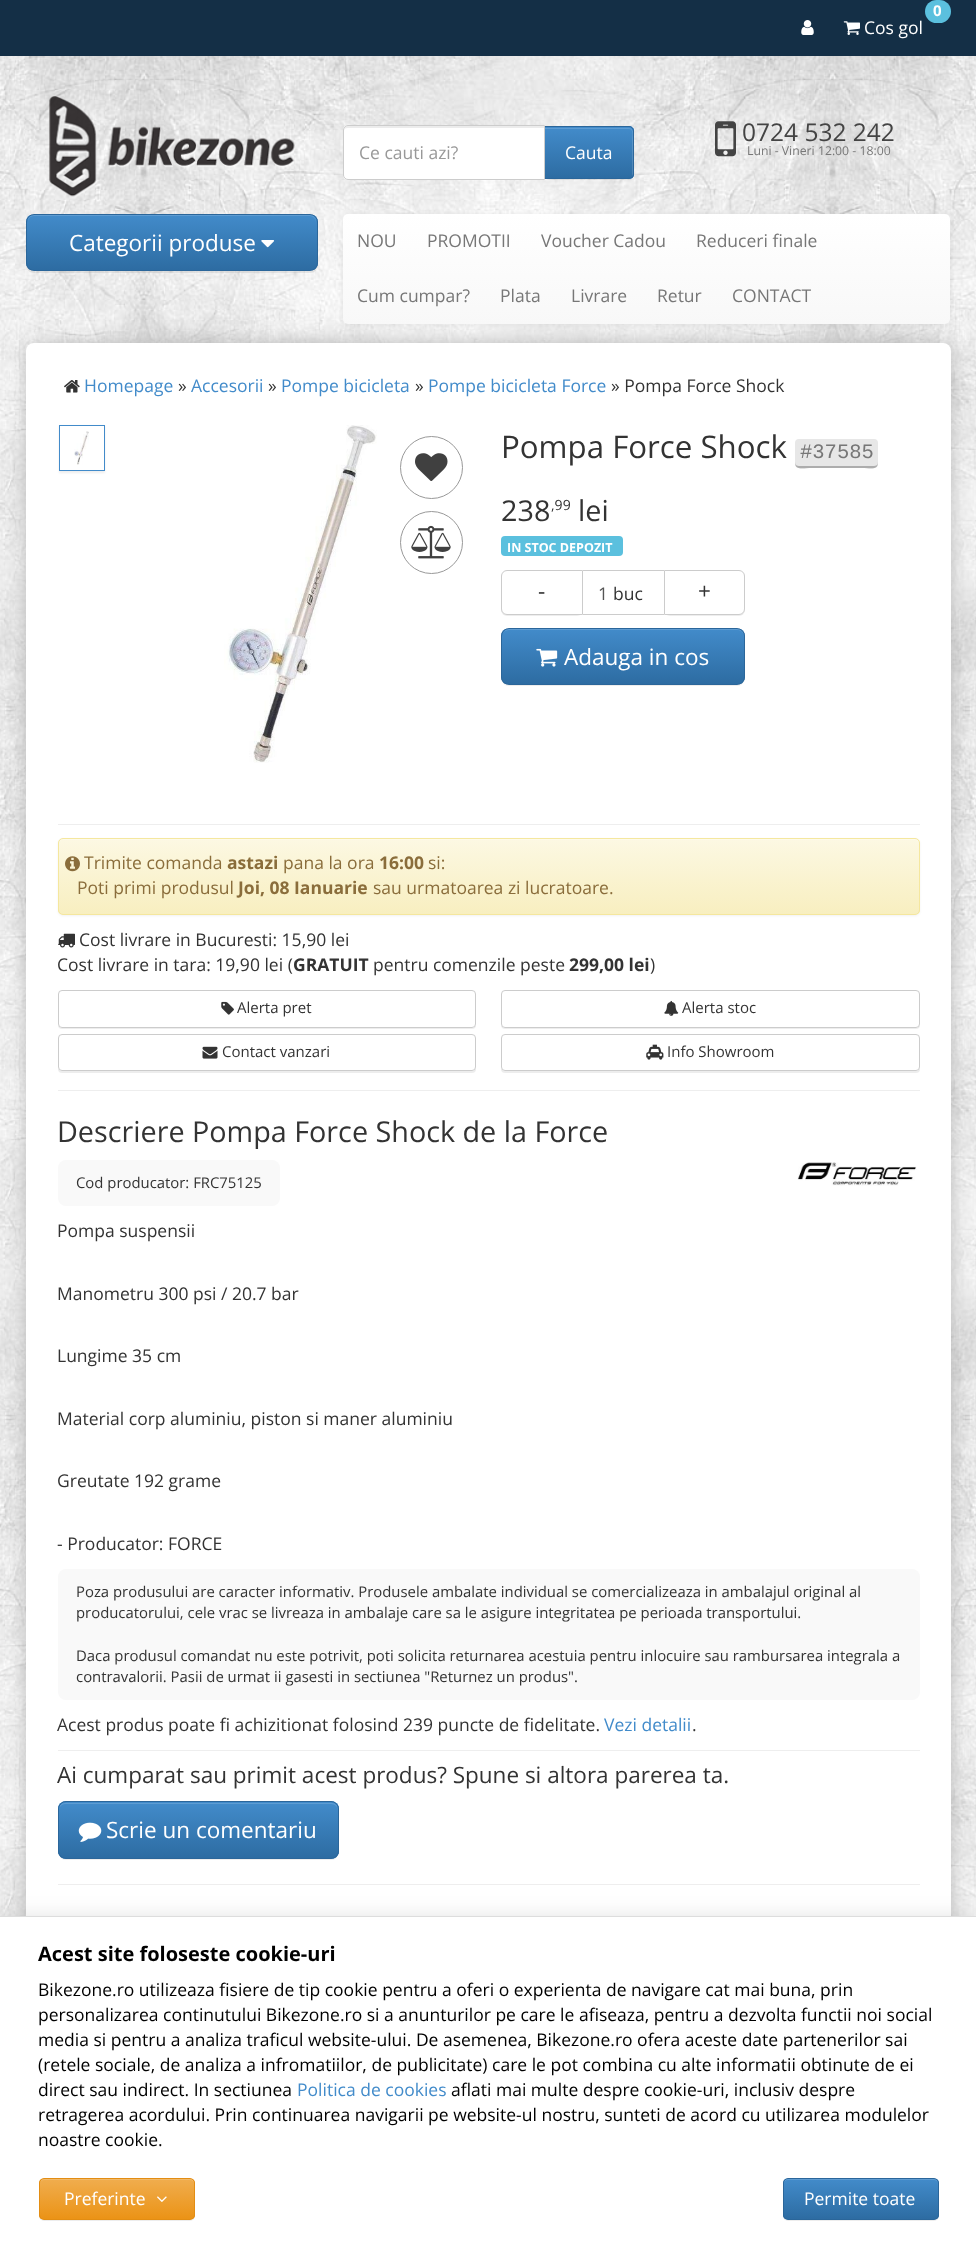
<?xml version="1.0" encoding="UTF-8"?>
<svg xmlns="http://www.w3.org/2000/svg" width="976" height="2244">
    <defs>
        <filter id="blur1" x="-50%" y="-200%" width="200%" height="500%"><feGaussianBlur stdDeviation="0.5"/></filter>
        <clipPath id="clip1"><path d="M 544 126 H 629 C 632 126 634 128 634 131 V 174 C 634 177 632 179 629 179 H 544 Z"/></clipPath>
        <linearGradient id="g1" gradientUnits="userSpaceOnUse" x1="589" y1="128" x2="589" y2="178"><stop offset="0" stop-color="#428BCA"/><stop offset="1" stop-color="#2D6CA2"/></linearGradient>
        <clipPath id="clip2"><rect x="26" y="214" width="292" height="57" rx="8"/></clipPath>
        <linearGradient id="g2" gradientUnits="userSpaceOnUse" x1="172" y1="215" x2="172" y2="270"><stop offset="0" stop-color="#428BCA"/><stop offset="1" stop-color="#2D6CA2"/></linearGradient>
        <filter id="blur2" x="-50%" y="-200%" width="200%" height="500%"><feGaussianBlur stdDeviation="3"/></filter>
        <filter id="blur3" x="-50%" y="-200%" width="200%" height="500%"><feGaussianBlur stdDeviation="12.5"/></filter>
        <linearGradient id="g3" gradientUnits="userSpaceOnUse" x1="646" y1="214" x2="646" y2="324"><stop offset="0" stop-color="#FFFFFF"/><stop offset="1" stop-color="#F8F8F8"/></linearGradient>
        <clipPath id="clip3"><path d="M 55 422 H 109 V 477 H 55 Z M 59 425 H 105 V 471 H 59 Z" clip-rule="evenodd"/></clipPath>
        <filter id="blur4" x="-50%" y="-200%" width="200%" height="500%"><feGaussianBlur stdDeviation="1"/></filter>
        <clipPath id="clip4"><rect x="501" y="628" width="244" height="57" rx="8"/></clipPath>
        <linearGradient id="g4" gradientUnits="userSpaceOnUse" x1="623" y1="629" x2="623" y2="684"><stop offset="0" stop-color="#428BCA"/><stop offset="1" stop-color="#2D6CA2"/></linearGradient>
        <clipPath id="clip5"><rect x="58" y="838" width="862" height="77" rx="5"/></clipPath>
        <linearGradient id="g5" gradientUnits="userSpaceOnUse" x1="489" y1="839" x2="489" y2="914"><stop offset="0" stop-color="#FCF8E3"/><stop offset="1" stop-color="#F8EFC0"/></linearGradient>
        <clipPath id="clip6"><path d="M 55 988 H 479 V 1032 H 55 Z M 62 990 H 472 C 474 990 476 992 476 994 V 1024 C 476 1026 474 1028 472 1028 H 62 C 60 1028 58 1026 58 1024 V 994 C 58 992 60 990 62 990 Z" clip-rule="evenodd"/></clipPath>
        <clipPath id="clip7"><path d="M 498 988 H 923 V 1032 H 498 Z M 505 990 H 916 C 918 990 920 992 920 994 V 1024 C 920 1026 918 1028 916 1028 H 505 C 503 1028 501 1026 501 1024 V 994 C 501 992 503 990 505 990 Z" clip-rule="evenodd"/></clipPath>
        <clipPath id="clip8"><path d="M 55 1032 H 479 V 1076 H 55 Z M 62 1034 H 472 C 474 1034 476 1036 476 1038 V 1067 C 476 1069 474 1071 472 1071 H 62 C 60 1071 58 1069 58 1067 V 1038 C 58 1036 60 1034 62 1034 Z" clip-rule="evenodd"/></clipPath>
        <clipPath id="clip9"><path d="M 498 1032 H 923 V 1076 H 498 Z M 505 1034 H 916 C 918 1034 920 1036 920 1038 V 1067 C 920 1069 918 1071 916 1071 H 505 C 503 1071 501 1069 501 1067 V 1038 C 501 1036 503 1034 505 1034 Z" clip-rule="evenodd"/></clipPath>
        <clipPath id="clip10"><rect x="58" y="1801" width="281" height="58" rx="8"/></clipPath>
        <linearGradient id="g6" gradientUnits="userSpaceOnUse" x1="198" y1="1803" x2="198" y2="1858"><stop offset="0" stop-color="#428BCA"/><stop offset="1" stop-color="#2D6CA2"/></linearGradient>
        <filter id="blur5" x="-50%" y="-200%" width="200%" height="500%"><feGaussianBlur stdDeviation="9.5"/></filter>
        <clipPath id="clip11"><rect x="39" y="2178" width="156" height="42" rx="5"/></clipPath>
        <linearGradient id="g7" gradientUnits="userSpaceOnUse" x1="117" y1="2179" x2="117" y2="2219"><stop offset="0" stop-color="#F0AD4E"/><stop offset="1" stop-color="#EB9316"/></linearGradient>
        <clipPath id="clip12"><rect x="783" y="2178" width="156" height="42" rx="5"/></clipPath>
        <linearGradient id="g8" gradientUnits="userSpaceOnUse" x1="861" y1="2179" x2="861" y2="2219"><stop offset="0" stop-color="#428BCA"/><stop offset="1" stop-color="#2D6CA2"/></linearGradient>
    </defs>
    <rect width="100%" height="100%" fill="#FFFFFF"/>
    <image x="0" y="56" width="976" height="1860" href="img_01.png"/>
    <rect x="0" y="0" width="976" height="56" fill="#142F46"/>
    <image x="801" y="20" width="13" height="15" href="img_02.png"/>
    <rect x="925" y="0" width="26" height="23" rx="11.5" fill="#5BC0DE"/>
    <text x="933" y="16" font-family="Open Sans" font-size="15" font-weight="700" fill="#FFFFFF">0</text>
    <image x="843" y="21" width="17" height="14" href="img_03.png"/>
    <text x="864" y="34" font-family="Open Sans" font-size="17.5" fill="#FFFFFF">Cos gol</text>
    <image x="49" y="96" width="246" height="102" href="img_04.png"/>
    <rect x="544" y="128" width="90" height="52" rx="5" fill="#000000" fill-opacity="0.07" filter="url(#blur1)"/>
    <path d="M 544 126 H 629 C 632 126 634 128 634 131 V 174 C 634 177 632 179 629 179 H 544 Z" fill="#428BCA"/>
    <g clip-path="url(#clip1)">
        <rect x="545" y="128" width="89" height="50" fill="url(#g1)"/>
    </g>
    <path d="M 545 129 H 629 C 634 129 632 137 632 139 V 177 C 632 176 633 175 633 174 V 132 C 633 130 631 128 629 128 H 545 Z" fill="#FFFFFF" fill-opacity="0.15"/>
    <path d="M 544.5 126.5 H 629 C 631.5 126.5 633.5 128.5 633.5 131 V 174 C 633.5 176.5 631.5 178.5 629 178.5 H 544.5 Z" fill="none" stroke="#2B669A"/>
    <path d="M 348 125 H 545 V 180 H 348 C 345 180 343 178 343 175 V 130 C 343 127 345 125 348 125 Z" fill="#FFFFFF"/>
    <path d="M 348 128 H 544 V 126 H 348 C 345 126 344 128 344 131 C 344 129 345 128 348 128 Z" fill="#ECECEC"/>
    <path d="M 348 125.5 H 544.5 V 179.5 H 348 C 345.5 179.5 343.5 177.5 343.5 175 V 130 C 343.5 127.5 345.5 125.5 348 125.5 Z" fill="none" stroke="#CCCCCC"/>
    <text x="359" y="159" font-family="Open Sans" font-size="17.5" fill="#999999">Ce cauti azi?</text>
    <text x="565" y="159" font-family="Open Sans" font-size="17.5" fill="#FFFFFF">Cauta</text>
    <image x="715" y="121" width="21" height="36" href="img_05.png"/>
    <text x="742" y="141" font-family="Open Sans" font-size="24.5" fill="#444444">0724 532 242</text>
    <text x="747" y="155" font-family="Open Sans" font-size="12.25" fill="#777777">Luni - Vineri 12:00 - 18:00</text>
    <rect x="26" y="215" width="292" height="58" rx="8" fill="#000000" fill-opacity="0.07" filter="url(#blur1)"/>
    <g clip-path="url(#clip2)">
        <rect x="26" y="215" width="292" height="55" fill="url(#g2)"/>
    </g>
    <path d="M 34 216 H 310 C 313 216 316 219 316 222 V 221 C 316 218 313 215 310 215 H 34 C 31 215 28 218 28 221 V 222 C 28 219 30 216 34 216 Z" fill="#5E9CD2"/>
    <rect x="26.5" y="214.5" width="291" height="56" rx="7.5" fill="none" stroke="#2B669A"/>
    <text x="69" y="251" font-family="Open Sans" font-size="22.5" fill="#FFFFFF">Categorii produse</text>
    <image x="261" y="240" width="14" height="8" href="img_06.png"/>
    <rect x="343" y="215" width="607" height="110" rx="5" fill="#000000" fill-opacity="0.07" filter="url(#blur2)"/>
    <rect x="30" y="346" width="918" height="1623" rx="4" fill="#AAAAAA" filter="url(#blur3)"/>
    <rect x="343" y="214" width="607" height="110" rx="5" fill="url(#g3)"/>
    <text x="357" y="247" font-family="Open Sans" font-size="17.5" fill="#777777">NOU</text>
    <text x="427" y="247" font-family="Open Sans" font-size="17.5" fill="#777777">PROMOTII</text>
    <text x="541" y="247" font-family="Open Sans" font-size="17.5" fill="#777777">Voucher Cadou</text>
    <text x="696" y="247" font-family="Open Sans" font-size="17.5" fill="#777777">Reduceri finale</text>
    <text x="357" y="302" font-family="Open Sans" font-size="17.5" fill="#777777">Cum cumpar?</text>
    <text x="500" y="302" font-family="Open Sans" font-size="17.5" fill="#777777">Plata</text>
    <text x="571" y="302" font-family="Open Sans" font-size="17.5" fill="#777777">Livrare</text>
    <text x="657" y="302" font-family="Open Sans" font-size="17.5" fill="#777777">Retur</text>
    <text x="732" y="302" font-family="Open Sans" font-size="17.5" fill="#777777">CONTACT</text>
    <rect x="26" y="343" width="925" height="1630" rx="8" fill="#FFFFFF"/>
    <image x="64" y="380" width="16" height="13" href="img_07.png"/>
    <text x="84" y="392" font-family="Open Sans" font-size="17.5" fill="#428BCA">Homepage</text>
    <text x="178" y="392" font-family="Open Sans" font-size="17.5" fill="#333333">»</text>
    <text x="191" y="392" font-family="Open Sans" font-size="17.5" fill="#428BCA">Accesorii</text>
    <text x="268" y="392" font-family="Open Sans" font-size="17.5" fill="#333333">»</text>
    <text x="281" y="392" font-family="Open Sans" font-size="17.5" fill="#428BCA">Pompe bicicleta</text>
    <text x="415" y="392" font-family="Open Sans" font-size="17.5" fill="#333333">»</text>
    <text x="428" y="392" font-family="Open Sans" font-size="17.5" fill="#428BCA">Pompe bicicleta Force</text>
    <text x="611" y="392" font-family="Open Sans" font-size="17.5" fill="#333333">» Pompa Force Shock</text>
    <g clip-path="url(#clip3)">
        <rect x="59" y="426" width="46" height="47" fill="#000000" fill-opacity="0.07" filter="url(#blur4)"/>
    </g>
    <rect x="59.5" y="425.5" width="45" height="45" fill="none" stroke="#428BCA"/>
    <image x="74" y="431" width="15" height="34" href="img_08.png"/>
    <image x="224" y="425" width="153" height="338" href="img_09.png"/>
    <circle cx="431.5" cy="467.5" r="31" fill="none" stroke="#999999"/>
    <image x="415" y="453" width="33" height="28" href="img_10.png"/>
    <circle cx="431.5" cy="542.5" r="31" fill="none" stroke="#999999"/>
    <image x="411" y="525" width="40" height="34" href="img_11.png"/>
    <text x="501" y="458" font-family="Open Sans" font-size="31.25" fill="#333333">Pompa Force Shock</text>
    <rect x="795" y="439" width="83" height="29" rx="4" fill="#E7E7E7"/>
    <text x="800" y="458" font-family="Liberation Mono" font-size="20.5" fill="#777777">#37585</text>
    <path d="M 795 462 C 795 471 803 468 812 468 H 862 C 870 468 878 471 878 462 C 878 465 876 466 874 466 H 799 C 797 466 795 465 795 462 Z" fill="#000000" fill-opacity="0.25"/>
    <text x="501" y="521" font-family="Open Sans" font-size="28.75" fill="#333333">238</text>
    <text x="551" y="510" font-family="Open Sans" font-size="14" fill="#333333">,99</text>
    <text x="578" y="521" font-family="Open Sans" font-size="28.75" fill="#333333">lei</text>
    <rect x="501" y="536" width="122" height="20" rx="4" fill="#5BC0DE"/>
    <text x="507" y="552" font-family="Open Sans" font-size="12.5" font-weight="700" fill="#FFFFFF">IN STOC DEPOZIT</text>
    <rect x="501" y="571" width="82" height="45" rx="6" fill="#000000" fill-opacity="0.07" filter="url(#blur1)"/>
    <path d="M 507 570.5 H 582.5 V 614.5 H 507 C 504 614.5 501.5 612 501.5 609 V 576 C 501.5 573 504 570.5 507 570.5 Z" fill="#FFFFFF" stroke="#CCCCCC"/>
    <text x="538" y="599" font-family="Open Sans" font-size="22.5" fill="#333333">-</text>
    <rect x="583" y="570" width="81" height="1" fill="#CCCCCC"/>
    <rect x="583" y="614" width="81" height="1" fill="#CCCCCC"/>
    <text x="598" y="600" font-family="Open Sans" font-size="17.5" fill="#555555">1</text>
    <text x="613" y="600" font-family="Open Sans" font-size="17.5" fill="#333333">buc</text>
    <rect x="664" y="571" width="81" height="45" rx="6" fill="#000000" fill-opacity="0.07" filter="url(#blur1)"/>
    <path d="M 664.5 570.5 H 739 C 742 570.5 744.5 573 744.5 576 V 609 C 744.5 612 742 614.5 739 614.5 H 664.5 Z" fill="#FFFFFF" stroke="#CCCCCC"/>
    <text x="698" y="599" font-family="Open Sans" font-size="22.5" fill="#333333">+</text>
    <rect x="501" y="629" width="244" height="57" rx="8" fill="#000000" fill-opacity="0.07" filter="url(#blur1)"/>
    <g clip-path="url(#clip4)">
        <rect x="501" y="629" width="244" height="55" fill="url(#g4)"/>
    </g>
    <path d="M 509 630 H 738 C 741 630 744 633 744 636 V 635 C 744 632 741 629 738 629 H 509 C 507 629 505 630 504 632 C 505 631 507 630 509 630 Z" fill="#5E9CD2"/>
    <rect x="501.5" y="628.5" width="243" height="56" rx="7.5" fill="none" stroke="#2B669A"/>
    <image x="536" y="648" width="22" height="19" href="img_12.png"/>
    <text x="564" y="665" font-family="Open Sans" font-size="22.5" fill="#FFFFFF">Adauga in cos</text>
    <rect x="58" y="824" width="862" height="1" fill="#EEEEEE"/>
    <rect x="58" y="839" width="862" height="77" rx="5" fill="#000000" fill-opacity="0.05" filter="url(#blur4)"/>
    <g clip-path="url(#clip5)">
        <rect x="58" y="839" width="862" height="75" fill="url(#g5)"/>
    </g>
    <path d="M 62 840 H 915 C 917 840 919 842 919 844 C 919 841 918 839 915 839 H 63 C 60 839 59 841 59 844 C 59 842 60 840 62 840 Z" fill="#FDFAEA"/>
    <rect x="58.5" y="838.5" width="861" height="76" rx="4.5" fill="none" stroke="#F5E79E"/>
    <image x="65" y="856" width="15" height="16" href="img_13.png"/>
    <text x="84" y="869" font-family="Open Sans" font-size="17.5" fill="#8A6D3B">Trimite comanda</text>
    <text x="227" y="869" font-family="Open Sans" font-size="17.5" font-weight="700" fill="#8A6D3B">astazi</text>
    <text x="283" y="869" font-family="Open Sans" font-size="17.5" fill="#8A6D3B">pana la ora</text>
    <text x="379" y="869" font-family="Open Sans" font-size="17.5" font-weight="700" fill="#8A6D3B">16:00</text>
    <text x="428" y="869" font-family="Open Sans" font-size="17.5" fill="#8A6D3B">si:</text>
    <text x="77" y="894" font-family="Open Sans" font-size="17.5" fill="#8A6D3B">Poti primi produsul</text>
    <text x="238" y="894" font-family="Open Sans" font-size="17.5" font-weight="700" fill="#8A6D3B">Joi, 08 Ianuarie</text>
    <text x="373" y="894" font-family="Open Sans" font-size="17.5" fill="#8A6D3B">sau urmatoarea zi lucratoare.</text>
    <image x="58" y="933" width="17" height="15" href="img_14.png"/>
    <text x="79" y="946" font-family="Open Sans" font-size="17.5" fill="#333333">Cost livrare in Bucuresti: 15,90 lei</text>
    <text x="57" y="971" font-family="Open Sans" font-size="17.5" fill="#333333">Cost livrare in tara: 19,90 lei (</text>
    <text x="293" y="971" font-family="Open Sans" font-size="17.5" font-weight="700" fill="#333333">GRATUIT</text>
    <text x="373" y="971" font-family="Open Sans" font-size="17.5" fill="#333333">pentru comenzile peste</text>
    <text x="569" y="971" font-family="Open Sans" font-size="17.5" font-weight="700" fill="#333333">299,00 lei</text>
    <text x="650" y="971" font-family="Open Sans" font-size="17.5" fill="#333333">)</text>
    <g clip-path="url(#clip6)">
        <rect x="58" y="991" width="418" height="38" rx="4" fill="#000000" fill-opacity="0.07" filter="url(#blur1)"/>
    </g>
    <rect x="58.5" y="990.5" width="417" height="37" rx="3.5" fill="none" stroke="#CCCCCC"/>
    <image x="221" y="1001" width="13" height="14" href="img_15.png"/>
    <text x="237" y="1013" font-family="Open Sans" font-size="15" fill="#333333">Alerta pret</text>
    <g clip-path="url(#clip7)">
        <rect x="501" y="991" width="419" height="38" rx="4" fill="#000000" fill-opacity="0.07" filter="url(#blur1)"/>
    </g>
    <rect x="501.5" y="990.5" width="418" height="37" rx="3.5" fill="none" stroke="#CCCCCC"/>
    <image x="664" y="1000" width="15" height="16" href="img_16.png"/>
    <text x="682" y="1013" font-family="Open Sans" font-size="15" fill="#333333">Alerta stoc</text>
    <g clip-path="url(#clip8)">
        <rect x="58" y="1035" width="418" height="38" rx="4" fill="#000000" fill-opacity="0.07" filter="url(#blur1)"/>
    </g>
    <rect x="58.5" y="1034.5" width="417" height="36" rx="3.5" fill="none" stroke="#CCCCCC"/>
    <image x="202" y="1046" width="16" height="13" href="img_17.png"/>
    <text x="222" y="1057" font-family="Open Sans" font-size="15" fill="#333333">Contact vanzari</text>
    <g clip-path="url(#clip9)">
        <rect x="501" y="1035" width="419" height="38" rx="4" fill="#000000" fill-opacity="0.07" filter="url(#blur1)"/>
    </g>
    <rect x="501.5" y="1034.5" width="418" height="36" rx="3.5" fill="none" stroke="#CCCCCC"/>
    <image x="646" y="1044" width="18" height="16" href="img_18.png"/>
    <text x="667" y="1057" font-family="Open Sans" font-size="15" fill="#333333">Info Showroom</text>
    <rect x="58" y="1090" width="862" height="1" fill="#EEEEEE"/>
    <text x="57" y="1142" font-family="Open Sans" font-size="28.75" fill="#333333">Descriere Pompa Force Shock de la Force</text>
    <rect x="58" y="1160" width="222" height="46" rx="8" fill="#F9F9F9"/>
    <text x="76" y="1188" font-family="Open Sans" font-size="14.88" fill="#333333">Cod producator: FRC75125</text>
    <image x="797" y="1162" width="120" height="24" href="img_19.png"/>
    <text x="57" y="1237" font-family="Open Sans" font-size="17.5" fill="#333333">Pompa suspensii</text>
    <text x="57" y="1300" font-family="Open Sans" font-size="17.5" fill="#333333">Manometru 300 psi / 20.7 bar</text>
    <text x="57" y="1362" font-family="Open Sans" font-size="17.5" fill="#333333">Lungime 35 cm</text>
    <text x="57" y="1425" font-family="Open Sans" font-size="17.5" fill="#333333">Material corp aluminiu, piston si maner aluminiu</text>
    <text x="57" y="1487" font-family="Open Sans" font-size="17.5" fill="#333333">Greutate 192 grame</text>
    <text x="57" y="1550" font-family="Open Sans" font-size="17.5" fill="#333333">- Producator: FORCE</text>
    <rect x="58" y="1569" width="862" height="131" rx="8" fill="#F9F9F9"/>
    <text font-family="Open Sans" font-size="14.88" fill="#333333">
        <tspan x="76" y="1597">Poza produsului are caracter informativ. Produsele ambalate individual se comercializeaza in ambalajul original al</tspan>
        <tspan x="76" y="1618">producatorului, cele vrac se livreaza in ambalaje care sa le asigure integritatea pe perioada transportului.</tspan>
    </text>
    <text font-family="Open Sans" font-size="14.88" fill="#333333">
        <tspan x="76" y="1661">Daca produsul comandat nu este potrivit, poti solicita returnarea acestuia pentru inlocuire sau rambursarea integrala a</tspan>
        <tspan x="76" y="1682">contravalorii. Pasii de urmat ii gasesti in sectiunea "Returnez un produs".</tspan>
    </text>
    <text x="57" y="1731" font-family="Open Sans" font-size="17.5" fill="#333333">Acest produs poate fi achizitionat folosind 239 puncte de fidelitate.</text>
    <text x="604" y="1731" font-family="Open Sans" font-size="17.5" fill="#428BCA">Vezi detalii</text>
    <text x="692" y="1731" font-family="Open Sans" font-size="17.5" fill="#333333">.</text>
    <rect x="58" y="1750" width="862" height="1" fill="#EEEEEE"/>
    <text x="57" y="1783" font-family="Open Sans" font-size="22.5" fill="#333333">Ai cumparat sau primit acest produs? Spune si altora parerea ta.</text>
    <rect x="58" y="1803" width="281" height="57" rx="8" fill="#000000" fill-opacity="0.07" filter="url(#blur1)"/>
    <rect x="58" y="1801" width="281" height="58" rx="8" fill="#428BCA"/>
    <g clip-path="url(#clip10)">
        <rect x="58" y="1803" width="281" height="55" fill="url(#g6)"/>
    </g>
    <path d="M 65 1804 H 331 C 335 1804 338 1807 338 1810 V 1809 C 338 1806 335 1803 332 1803 H 65 C 62 1803 59 1806 59 1809 V 1810 C 59 1807 62 1804 65 1804 Z" fill="#5E9CD2"/>
    <rect x="58.5" y="1801.5" width="280" height="57" rx="7.5" fill="none" stroke="#2B669A"/>
    <image x="78" y="1822" width="24" height="20" href="img_20.png"/>
    <text x="106" y="1838" font-family="Open Sans" font-size="22.5" fill="#FFFFFF">Scrie un comentariu</text>
    <rect x="58" y="1884" width="862" height="1" fill="#EEEEEE"/>
    <rect x="0" y="1915" width="976" height="329" fill="#000000" fill-opacity="0.1" filter="url(#blur5)"/>
    <rect x="0" y="1917" width="976" height="327" fill="#FFFFFF"/>
    <rect x="0" y="1916" width="976" height="1" fill="#DDDDDD"/>
    <text x="38" y="1961" font-family="Open Sans" font-size="20" font-weight="700" fill="#000000">Acest site foloseste cookie-uri</text>
    <text font-family="Open Sans" font-size="17.5" fill="#000000">
        <tspan x="38" y="1996">Bikezone.ro utilizeaza fisiere de tip cookie pentru a oferi o experienta de navigare cat mai buna, prin</tspan>
        <tspan x="38" y="2021">personalizarea continutului Bikezone.ro si a anunturilor pe care le afiseaza, pentru a dezvolta functii noi social</tspan>
        <tspan x="38" y="2046">media si pentru a analiza traficul website-ului. De asemenea, Bikezone.ro ofera aceste date partenerilor sai</tspan>
        <tspan x="38" y="2071">(retele sociale, de analiza a infromatiilor, de publicitate) care le pot combina cu alte informatii obtinute de ei</tspan>
        <tspan x="38" y="2096">direct sau indirect. In sectiunea</tspan>
    </text>
    <text x="297" y="2096" font-family="Open Sans" font-size="17.5" fill="#428BCA">Politica de cookies</text>
    <text x="451" y="2096" font-family="Open Sans" font-size="17.5" fill="#000000">aflati mai multe despre cookie-uri, inclusiv despre</text>
    <text font-family="Open Sans" font-size="17.5" fill="#000000">
        <tspan x="38" y="2121">retragerea acordului. Prin continuarea navigarii pe website-ul nostru, sunteti de acord cu utilizarea modulelor</tspan>
        <tspan x="38" y="2146">noastre cookie.</tspan>
    </text>
    <rect x="39" y="2179" width="156" height="42" rx="5" fill="#000000" fill-opacity="0.07" filter="url(#blur1)"/>
    <g clip-path="url(#clip11)">
        <rect x="39" y="2179" width="156" height="40" fill="url(#g7)"/>
    </g>
    <path d="M 44 2180 H 190 C 192 2180 194 2182 194 2184 C 194 2181 193 2179 190 2179 H 43 C 41 2180 40 2182 40 2184 C 40 2182 42 2180 44 2180 Z" fill="#F2B968"/>
    <rect x="39.5" y="2178.5" width="155" height="41" rx="4.5" fill="none" stroke="#E38D13"/>
    <text x="64" y="2205" font-family="Open Sans" font-size="17.5" fill="#FFFFFF">Preferinte</text>
    <image x="157" y="2196" width="10" height="6" href="img_21.png"/>
    <rect x="783" y="2179" width="156" height="42" rx="5" fill="#000000" fill-opacity="0.07" filter="url(#blur1)"/>
    <g clip-path="url(#clip12)">
        <rect x="783" y="2179" width="156" height="40" fill="url(#g8)"/>
    </g>
    <path d="M 788 2180 H 934 C 936 2180 938 2182 938 2184 C 938 2182 937 2180 935 2179 H 788 C 785 2179 784 2181 784 2184 C 784 2182 785 2180 788 2180 Z" fill="#5E9CD2"/>
    <rect x="783.5" y="2178.5" width="155" height="41" rx="4.5" fill="none" stroke="#2B669A"/>
    <text x="804" y="2205" font-family="Open Sans" font-size="17.5" fill="#FFFFFF">Permite toate</text>
</svg>
